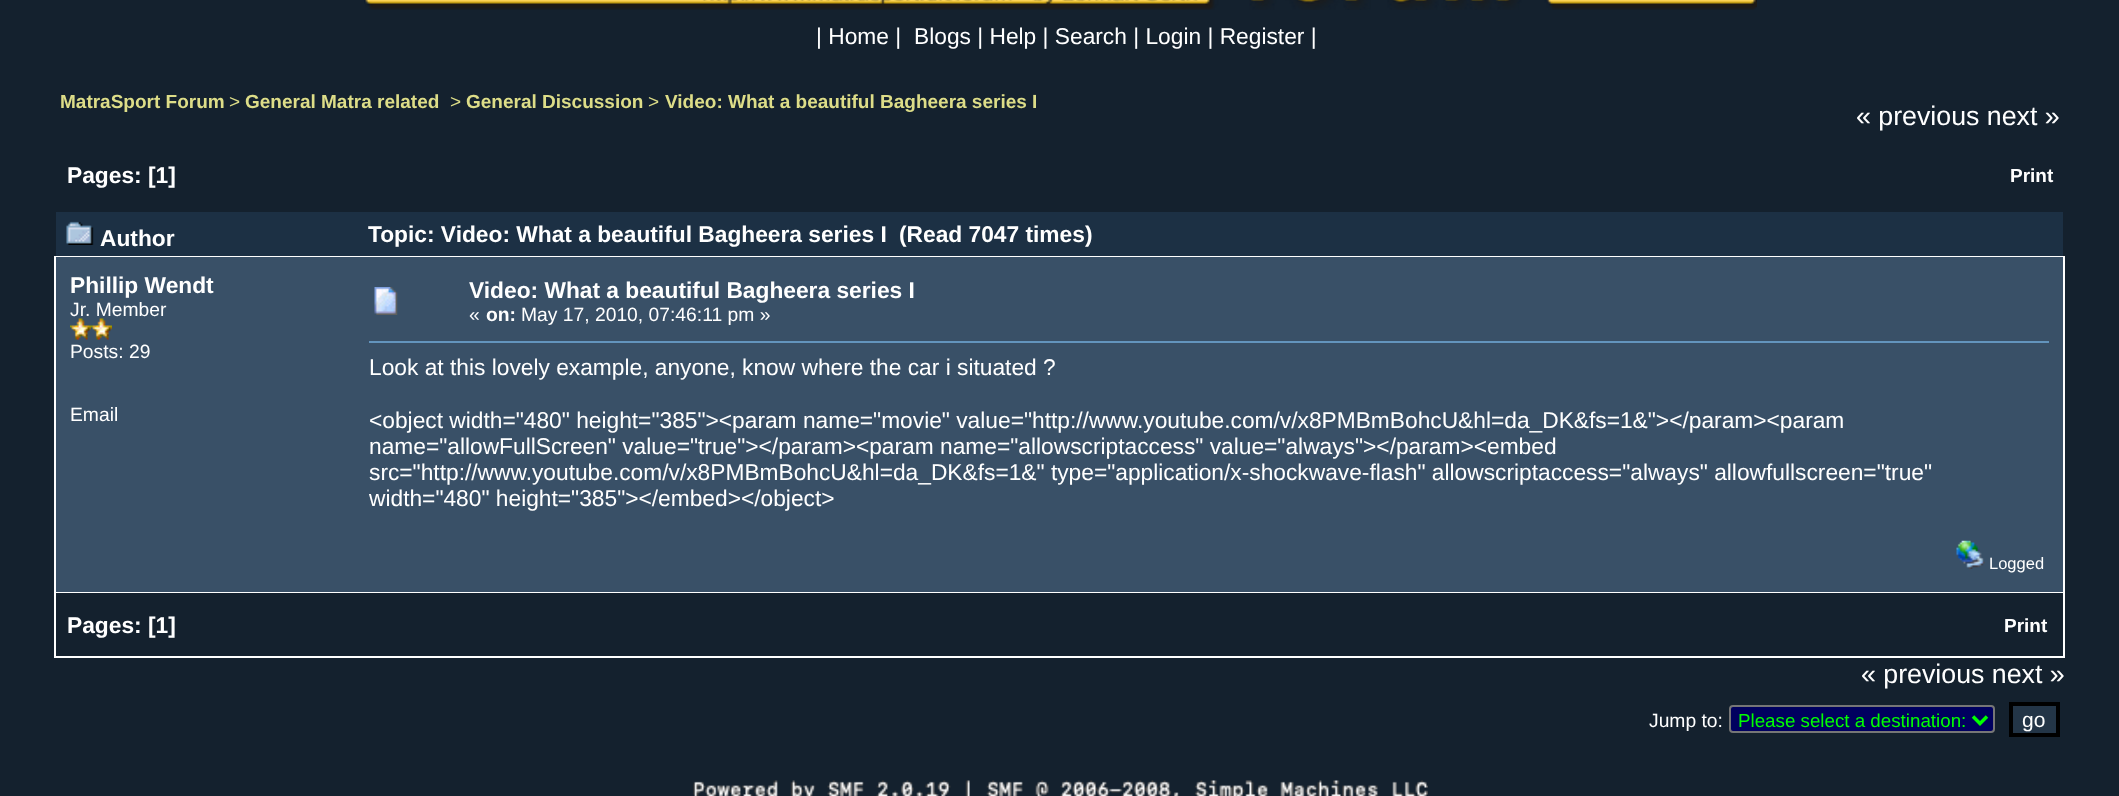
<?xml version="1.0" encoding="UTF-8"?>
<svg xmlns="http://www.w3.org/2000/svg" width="2119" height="796">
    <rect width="100%" height="100%" fill="#14212E"/>
    <image x="364" y="0" width="1393" height="10" href="img_01.png"/>
    <text x="816" y="44" font-family="Liberation Sans" font-size="22.75" fill="#FFFFFF">| Home |</text>
    <text x="914" y="44" font-family="Liberation Sans" font-size="22.75" fill="#FFFFFF">Blogs | Help | Search | Login | Register |</text>
    <text x="60" y="108" font-family="Liberation Sans" font-size="19" font-weight="700" fill="#DDDD88">MatraSport Forum</text>
    <text x="229" y="108" font-family="Liberation Sans" font-size="19" fill="#DDDD88">&gt;</text>
    <text x="245" y="108" font-family="Liberation Sans" font-size="19" font-weight="700" fill="#DDDD88">General Matra related</text>
    <text x="450" y="108" font-family="Liberation Sans" font-size="19" fill="#DDDD88">&gt;</text>
    <text x="466" y="108" font-family="Liberation Sans" font-size="19" font-weight="700" fill="#DDDD88">General Discussion</text>
    <text x="648" y="108" font-family="Liberation Sans" font-size="19" fill="#DDDD88">&gt;</text>
    <text x="665" y="108" font-family="Liberation Sans" font-size="19" font-weight="700" fill="#DDDD88">Video: What a beautiful Bagheera series I</text>
    <text x="1856" y="125" font-family="Liberation Sans" font-size="26.75" fill="#FFFFFF">« previous next »</text>
    <text x="67" y="183" font-family="Liberation Sans" font-size="22.75" font-weight="700" fill="#FFFFFF">Pages: [1]</text>
    <text x="2010" y="182" font-family="Liberation Sans" font-size="19" font-weight="700" fill="#FFFFFF">Print</text>
    <rect x="56" y="212" width="2007" height="44" fill="#1C3044"/>
    <image x="66" y="221" width="28" height="24" href="img_02.png"/>
    <text x="100" y="246" font-family="Liberation Sans" font-size="22.75" font-weight="700" fill="#FFFFFF">Author</text>
    <text x="368" y="242" font-family="Liberation Sans" font-size="22.75" font-weight="700" fill="#FFFFFF">Topic: Video: What a beautiful Bagheera series I</text>
    <text x="899" y="242" font-family="Liberation Sans" font-size="22.75" font-weight="700" fill="#FFFFFF">(Read 7047 times)</text>
    <rect x="54" y="256" width="2011" height="402" fill="#FFFFFF"/>
    <rect x="56" y="257" width="2007" height="335" fill="#395067"/>
    <text x="70" y="293" font-family="Liberation Sans" font-size="22.75" font-weight="700" fill="#FFFFFF">Phillip Wendt</text>
    <text x="70" y="316" font-family="Liberation Sans" font-size="19.3" fill="#FFFFFF">Jr. Member</text>
    <image x="70" y="318" width="21" height="22" href="img_03.png"/>
    <image x="91" y="318" width="21" height="22" href="img_04.png"/>
    <text x="70" y="358" font-family="Liberation Sans" font-size="19.3" fill="#FFFFFF">Posts: 29</text>
    <text x="70" y="421" font-family="Liberation Sans" font-size="19.3" fill="#FFFFFF">Email</text>
    <image x="374" y="287" width="24" height="28" href="img_05.png"/>
    <text x="469" y="298" font-family="Liberation Sans" font-size="22.75" font-weight="700" fill="#FFFFFF">Video: What a beautiful Bagheera series I</text>
    <text x="469" y="321" font-family="Liberation Sans" font-size="19.3" fill="#FFFFFF">«</text>
    <text x="486" y="321" font-family="Liberation Sans" font-size="19.3" font-weight="700" fill="#FFFFFF">on:</text>
    <text x="521" y="321" font-family="Liberation Sans" font-size="19.3" fill="#FFFFFF">May 17, 2010, 07:46:11 pm »</text>
    <rect x="369" y="341" width="1680" height="2" fill="#6394BD"/>
    <text x="369" y="375" font-family="Liberation Sans" font-size="22.75" fill="#FFFFFF">Look at this lovely example, anyone, know where the car i situated ?</text>
    <text font-family="Liberation Sans" font-size="22.75" fill="#FFFFFF">
        <tspan x="369" y="428">&lt;object width="480" height="385"&gt;&lt;param name="movie" value="http://www.youtube.com/v/x8PMBmBohcU&amp;hl=da_DK&amp;fs=1&amp;"&gt;&lt;/param&gt;&lt;param</tspan>
        <tspan x="369" y="454">name="allowFullScreen" value="true"&gt;&lt;/param&gt;&lt;param name="allowscriptaccess" value="always"&gt;&lt;/param&gt;&lt;embed</tspan>
        <tspan x="369" y="480">src="http://www.youtube.com/v/x8PMBmBohcU&amp;hl=da_DK&amp;fs=1&amp;" type="application/x-shockwave-flash" allowscriptaccess="always" allowfullscreen="true"</tspan>
        <tspan x="369" y="506">width="480" height="385"&gt;&lt;/embed&gt;&lt;/object&gt;</tspan>
    </text>
    <image x="1956" y="540" width="29" height="29" href="img_06.png"/>
    <text x="1989" y="569" font-family="Liberation Sans" font-size="16.5" fill="#FFFFFF">Logged</text>
    <rect x="56" y="593" width="2007" height="63" fill="#14212E"/>
    <text x="67" y="633" font-family="Liberation Sans" font-size="22.75" font-weight="700" fill="#FFFFFF">Pages: [1]</text>
    <text x="2004" y="632" font-family="Liberation Sans" font-size="19" font-weight="700" fill="#FFFFFF">Print</text>
    <text x="1861" y="683" font-family="Liberation Sans" font-size="26.75" fill="#FFFFFF">« previous next »</text>
    <text x="1649" y="727" font-family="Liberation Sans" font-size="19.3" fill="#FFFFFF">Jump to:</text>
    <rect x="1730" y="706" width="264" height="26" rx="3" fill="#00005F" stroke="#767676" stroke-width="2"/>
    <path d="M 1973 716.5 L 1980 723.5 L 1987 716.5" fill="none" stroke="#00FF00" stroke-width="3.5"/>
    <text x="1738" y="727" font-family="Liberation Sans" font-size="18.75" fill="#00FF00">Please select a destination:</text>
    <rect x="2011" y="704" width="47" height="31" fill="#233547" stroke="#000000" stroke-width="4"/>
    <text x="2022" y="727" font-family="Liberation Sans" font-size="21" fill="#FFFFFF">go</text>
    <image x="693" y="780" width="735" height="16" href="img_07.png"/>
</svg>
